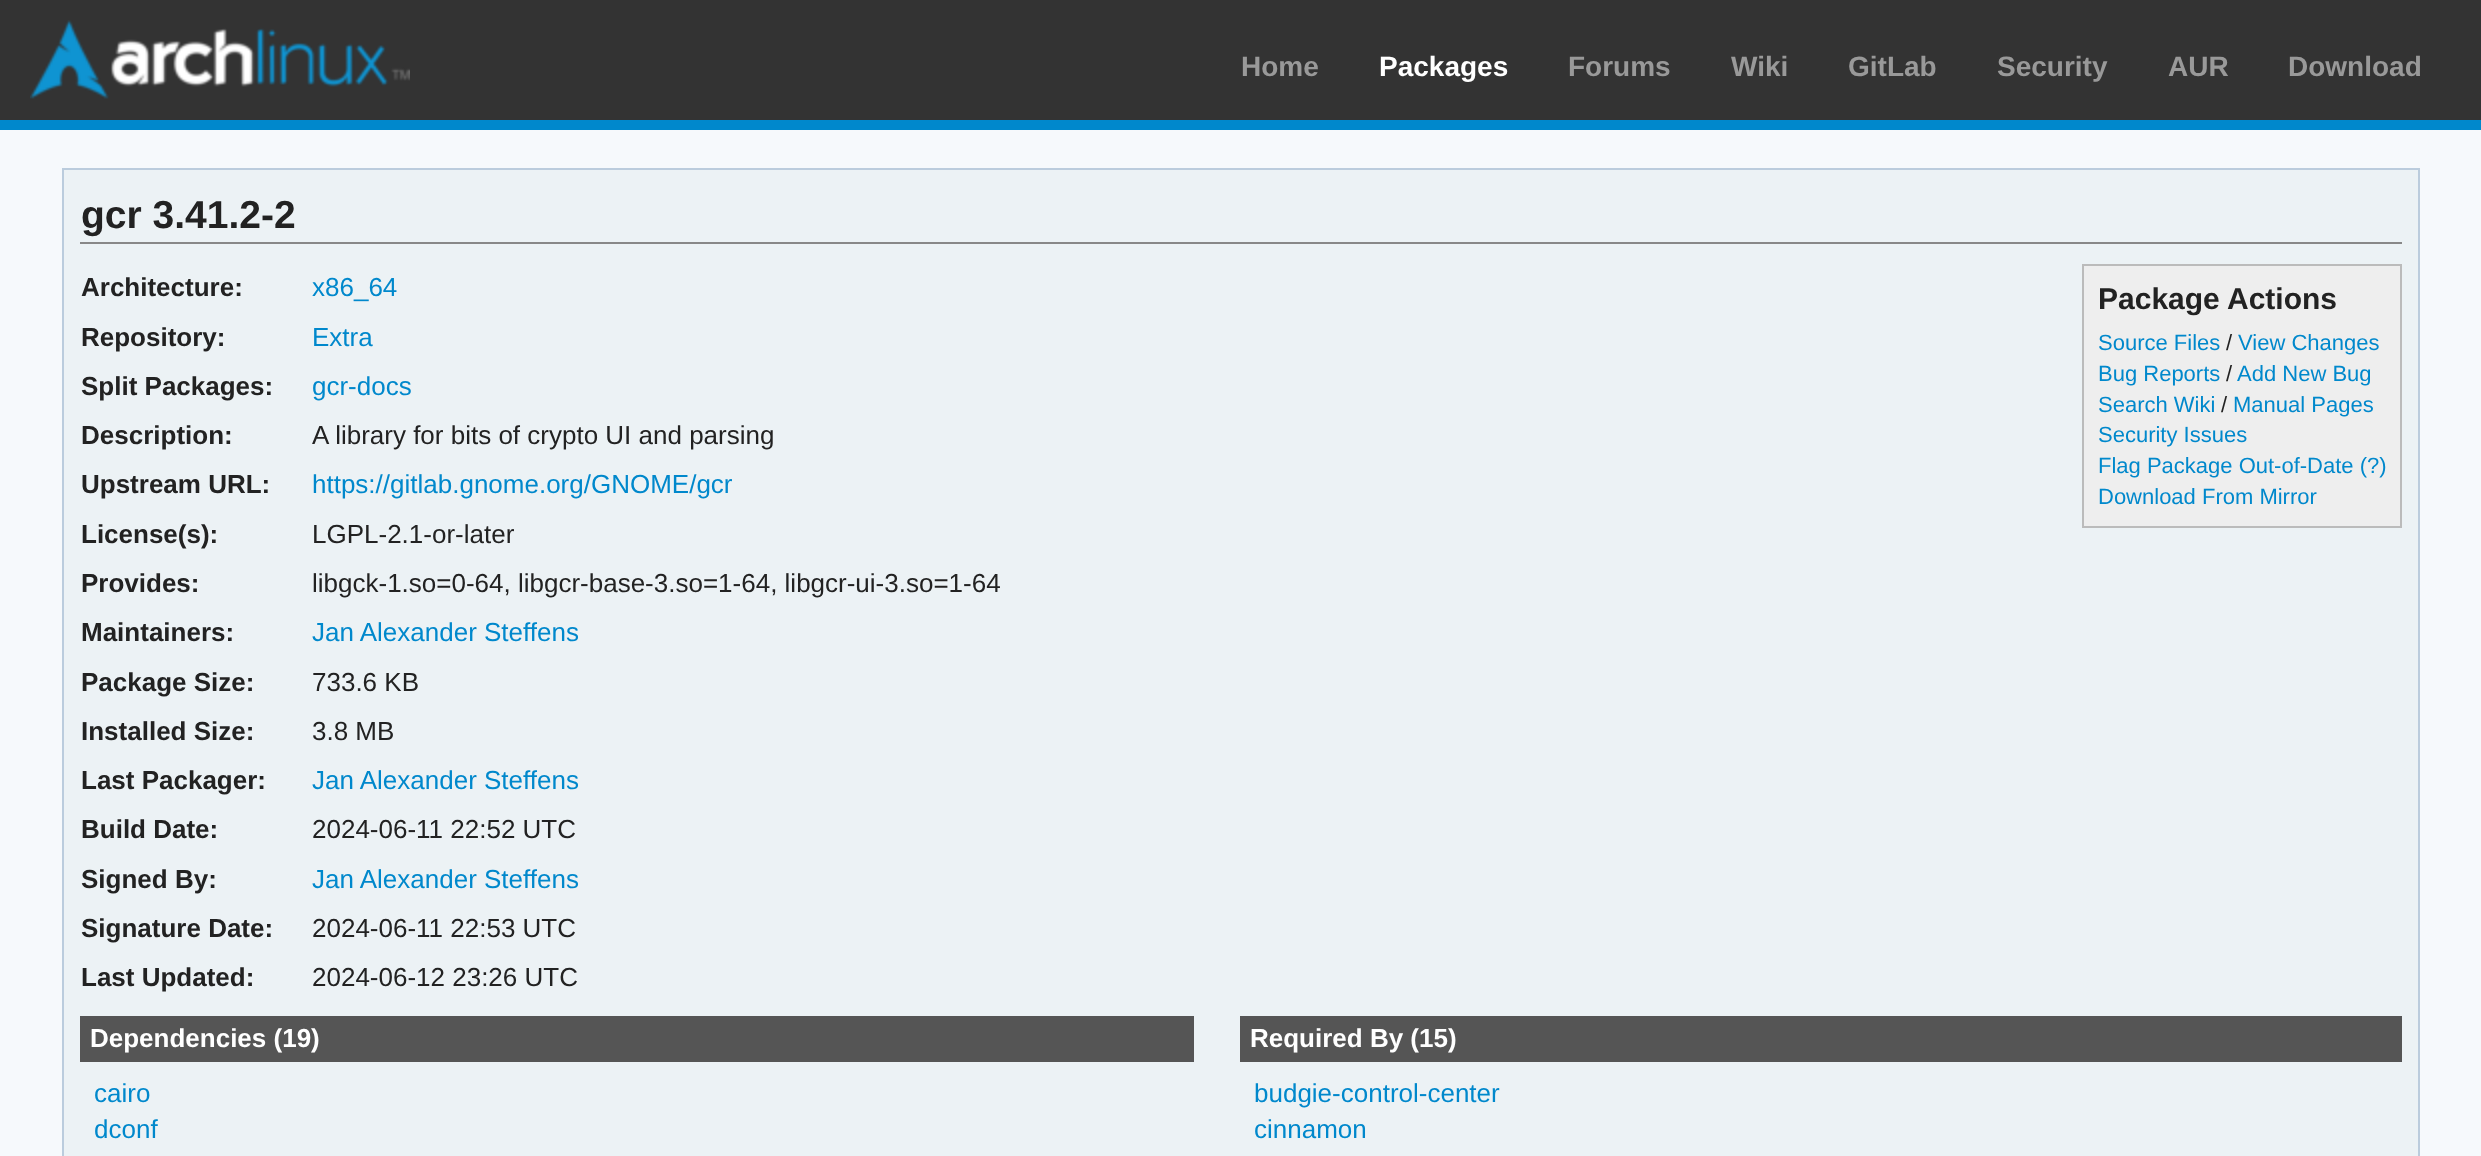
<?xml version="1.0" encoding="UTF-8"?>
<svg xmlns="http://www.w3.org/2000/svg" width="2481" height="1156">
    <rect width="100%" height="100%" fill="#F6F9FC"/>
    <rect x="0" y="0" width="2481" height="120" fill="#333333"/>
    <rect x="0" y="120" width="2481" height="10" fill="#0088CC"/>
    <image x="30" y="20" width="380" height="79" href="img_01.png"/>
    <text x="1241" y="76" font-family="Liberation Sans" font-size="28" font-weight="700" fill="#999999">Home</text>
    <text x="1379" y="76" font-family="Liberation Sans" font-size="28" font-weight="700" fill="#FFFFFF">Packages</text>
    <text x="1568" y="76" font-family="Liberation Sans" font-size="28" font-weight="700" fill="#999999">Forums</text>
    <text x="1731" y="76" font-family="Liberation Sans" font-size="28" font-weight="700" fill="#999999">Wiki</text>
    <text x="1848" y="76" font-family="Liberation Sans" font-size="28" font-weight="700" fill="#999999">GitLab</text>
    <text x="1997" y="76" font-family="Liberation Sans" font-size="28" font-weight="700" fill="#999999">Security</text>
    <text x="2168" y="76" font-family="Liberation Sans" font-size="28" font-weight="700" fill="#999999">AUR</text>
    <text x="2288" y="76" font-family="Liberation Sans" font-size="28" font-weight="700" fill="#999999">Download</text>
    <rect x="63" y="169" width="2356" height="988" fill="#ECF2F5" stroke="#BBCCDD" stroke-width="2"/>
    <rect x="80" y="242" width="2322" height="2" fill="#888888"/>
    <text x="81" y="228" font-family="Liberation Sans" font-size="39" font-weight="700" fill="#222222">gcr 3.41.2-2</text>
    <text x="81" y="296" font-family="Liberation Sans" font-size="26" font-weight="700" fill="#222222">Architecture:</text>
    <text x="312" y="296" font-family="Liberation Sans" font-size="26" fill="#0088CC">x86_64</text>
    <text x="81" y="346" font-family="Liberation Sans" font-size="26" font-weight="700" fill="#222222">Repository:</text>
    <text x="312" y="346" font-family="Liberation Sans" font-size="26" fill="#0088CC">Extra</text>
    <text x="81" y="395" font-family="Liberation Sans" font-size="26" font-weight="700" fill="#222222">Split Packages:</text>
    <text x="312" y="395" font-family="Liberation Sans" font-size="26" fill="#0088CC">gcr-docs</text>
    <text x="81" y="444" font-family="Liberation Sans" font-size="26" font-weight="700" fill="#222222">Description:</text>
    <text x="312" y="444" font-family="Liberation Sans" font-size="26" fill="#222222">A library for bits of crypto UI and parsing</text>
    <text x="81" y="493" font-family="Liberation Sans" font-size="26" font-weight="700" fill="#222222">Upstream URL:</text>
    <text x="312" y="493" font-family="Liberation Sans" font-size="26" fill="#0088CC">https://gitlab.gnome.org/GNOME/gcr</text>
    <text x="81" y="543" font-family="Liberation Sans" font-size="26" font-weight="700" fill="#222222">License(s):</text>
    <text x="312" y="543" font-family="Liberation Sans" font-size="26" fill="#222222">LGPL-2.1-or-later</text>
    <text x="81" y="592" font-family="Liberation Sans" font-size="26" font-weight="700" fill="#222222">Provides:</text>
    <text x="312" y="592" font-family="Liberation Sans" font-size="26" fill="#222222">libgck-1.so=0-64, libgcr-base-3.so=1-64, libgcr-ui-3.so=1-64</text>
    <text x="81" y="641" font-family="Liberation Sans" font-size="26" font-weight="700" fill="#222222">Maintainers:</text>
    <text x="312" y="641" font-family="Liberation Sans" font-size="26" fill="#0088CC">Jan Alexander Steffens</text>
    <text x="81" y="691" font-family="Liberation Sans" font-size="26" font-weight="700" fill="#222222">Package Size:</text>
    <text x="312" y="691" font-family="Liberation Sans" font-size="26" fill="#222222">733.6 KB</text>
    <text x="81" y="740" font-family="Liberation Sans" font-size="26" font-weight="700" fill="#222222">Installed Size:</text>
    <text x="312" y="740" font-family="Liberation Sans" font-size="26" fill="#222222">3.8 MB</text>
    <text x="81" y="789" font-family="Liberation Sans" font-size="26" font-weight="700" fill="#222222">Last Packager:</text>
    <text x="312" y="789" font-family="Liberation Sans" font-size="26" fill="#0088CC">Jan Alexander Steffens</text>
    <text x="81" y="838" font-family="Liberation Sans" font-size="26" font-weight="700" fill="#222222">Build Date:</text>
    <text x="312" y="838" font-family="Liberation Sans" font-size="26" fill="#222222">2024-06-11 22:52 UTC</text>
    <text x="81" y="888" font-family="Liberation Sans" font-size="26" font-weight="700" fill="#222222">Signed By:</text>
    <text x="312" y="888" font-family="Liberation Sans" font-size="26" fill="#0088CC">Jan Alexander Steffens</text>
    <text x="81" y="937" font-family="Liberation Sans" font-size="26" font-weight="700" fill="#222222">Signature Date:</text>
    <text x="312" y="937" font-family="Liberation Sans" font-size="26" fill="#222222">2024-06-11 22:53 UTC</text>
    <text x="81" y="986" font-family="Liberation Sans" font-size="26" font-weight="700" fill="#222222">Last Updated:</text>
    <text x="312" y="986" font-family="Liberation Sans" font-size="26" fill="#222222">2024-06-12 23:26 UTC</text>
    <rect x="2083" y="265" width="318" height="262" fill="#EEEEEE" stroke="#BBBBBB" stroke-width="2"/>
    <text x="2098" y="309" font-family="Liberation Sans" font-size="30" font-weight="700" fill="#222222">Package Actions</text>
    <text x="2098" y="350" font-family="Liberation Sans" font-size="22" fill="#0088CC">Source Files</text>
    <text x="2226" y="350" font-family="Liberation Sans" font-size="22" fill="#222222">/</text>
    <text x="2238" y="350" font-family="Liberation Sans" font-size="22" fill="#0088CC">View Changes</text>
    <text x="2098" y="381" font-family="Liberation Sans" font-size="22" fill="#0088CC">Bug Reports</text>
    <text x="2226" y="381" font-family="Liberation Sans" font-size="22" fill="#222222">/</text>
    <text x="2237" y="381" font-family="Liberation Sans" font-size="22" fill="#0088CC">Add New Bug</text>
    <text x="2098" y="412" font-family="Liberation Sans" font-size="22" fill="#0088CC">Search Wiki</text>
    <text x="2221" y="412" font-family="Liberation Sans" font-size="22" fill="#222222">/</text>
    <text x="2233" y="412" font-family="Liberation Sans" font-size="22" fill="#0088CC">Manual Pages</text>
    <text font-family="Liberation Sans" font-size="22" fill="#0088CC">
        <tspan x="2098" y="442">Security Issues</tspan>
        <tspan x="2098" y="473">Flag Package Out-of-Date (?)</tspan>
        <tspan x="2098" y="504">Download From Mirror</tspan>
    </text>
    <rect x="80" y="1016" width="1114" height="46" fill="#555555"/>
    <text x="90" y="1047" font-family="Liberation Sans" font-size="26" font-weight="700" fill="#FFFFFF">Dependencies (19)</text>
    <text font-family="Liberation Sans" font-size="26" fill="#0088CC">
        <tspan x="94" y="1102">cairo</tspan>
        <tspan x="94" y="1138">dconf</tspan>
    </text>
    <rect x="1240" y="1016" width="1162" height="46" fill="#555555"/>
    <text x="1250" y="1047" font-family="Liberation Sans" font-size="26" font-weight="700" fill="#FFFFFF">Required By (15)</text>
    <text font-family="Liberation Sans" font-size="26" fill="#0088CC">
        <tspan x="1254" y="1102">budgie-control-center</tspan>
        <tspan x="1254" y="1138">cinnamon</tspan>
    </text>
</svg>
